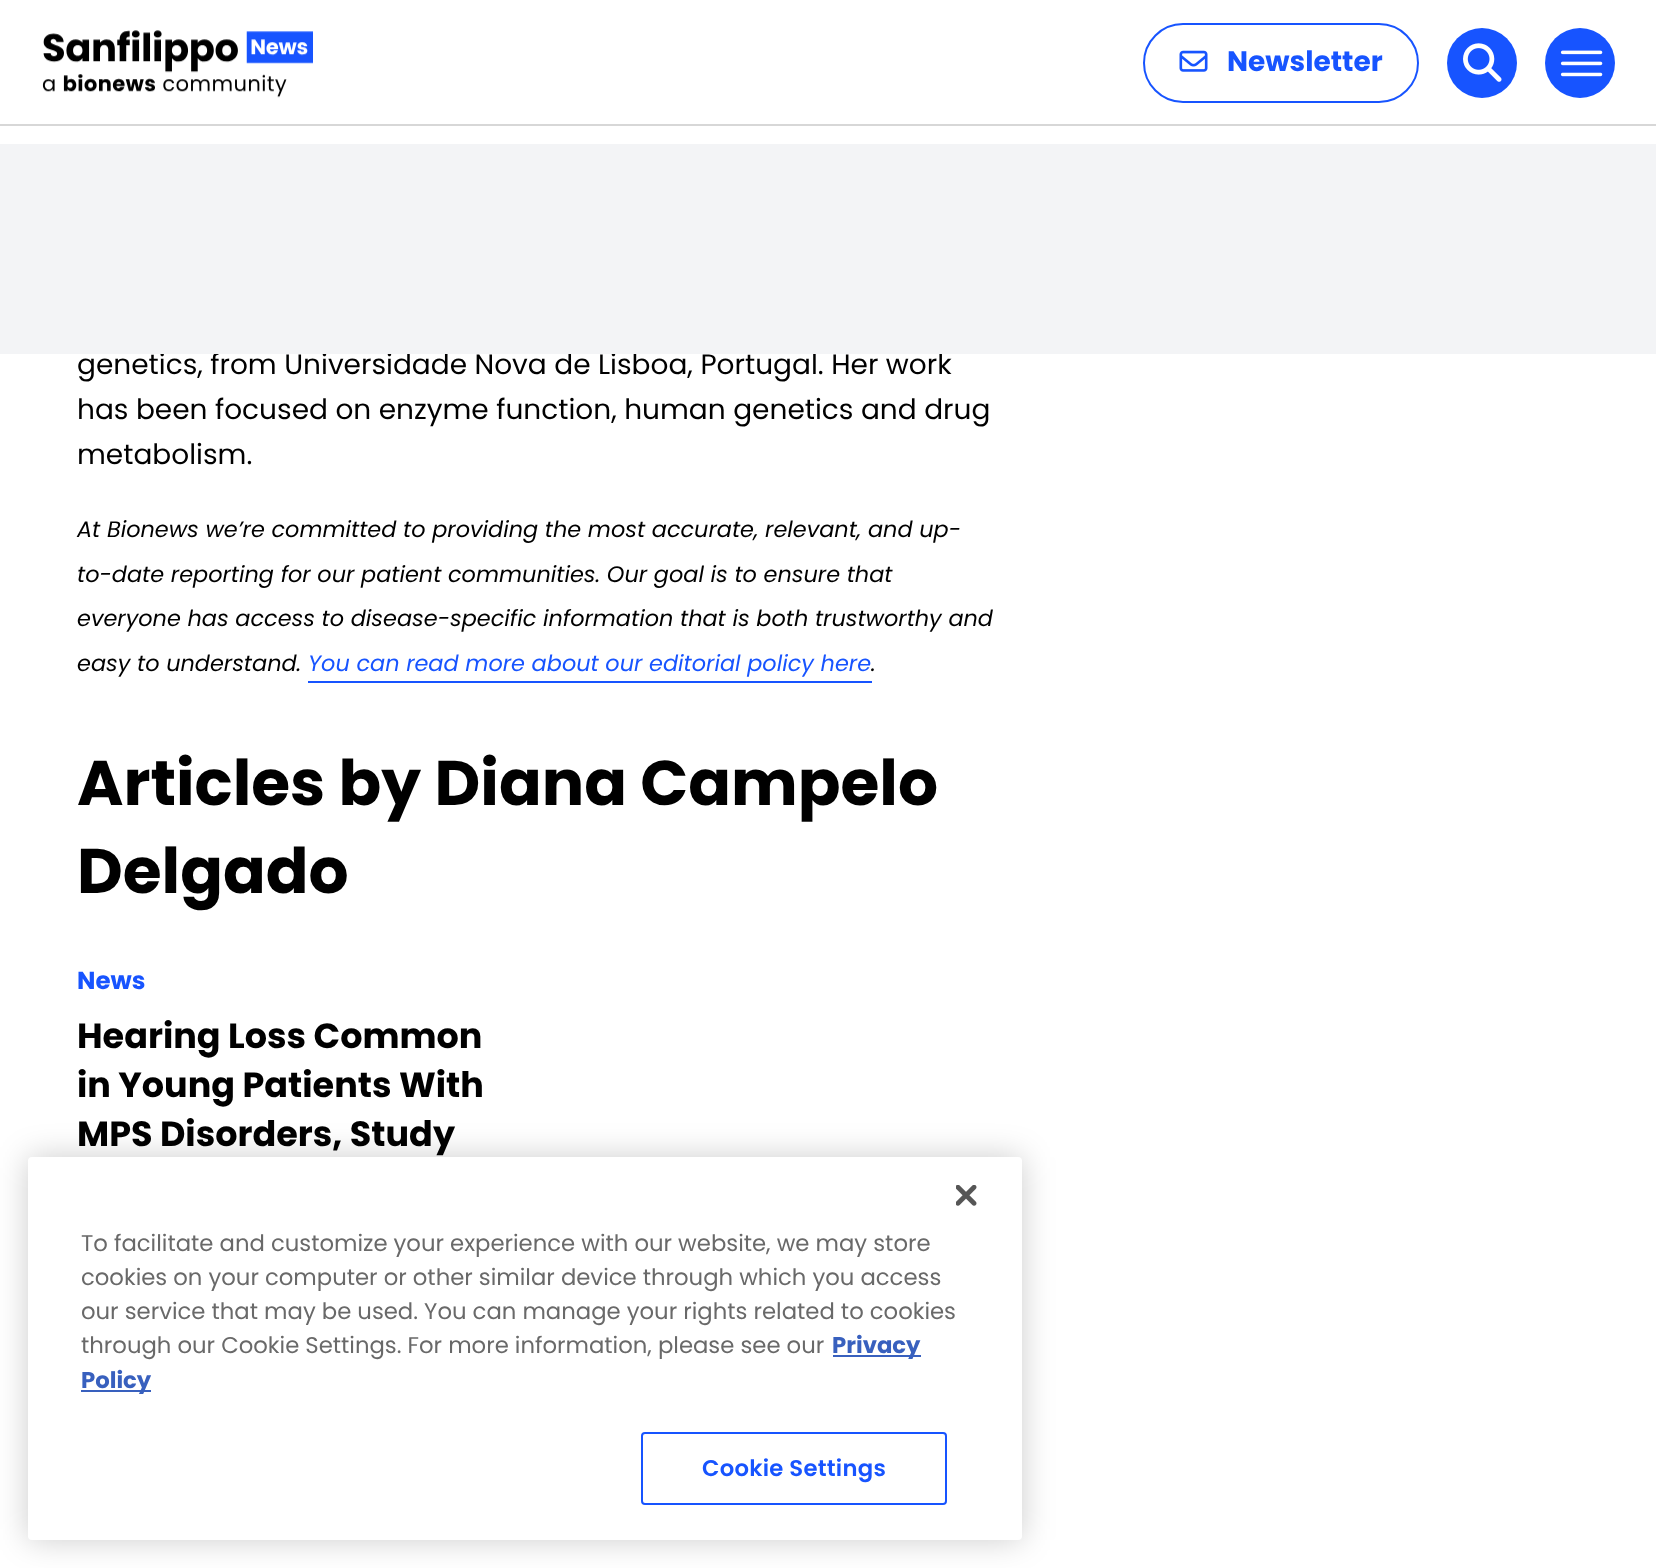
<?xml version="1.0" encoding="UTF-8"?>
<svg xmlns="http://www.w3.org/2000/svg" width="1656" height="1568">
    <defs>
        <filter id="blur1" x="-50%" y="-200%" width="200%" height="500%"><feGaussianBlur stdDeviation="16"/></filter>
    </defs>
    <rect width="100%" height="100%" fill="#FFFFFF"/>
    <rect x="0" y="124" width="1656" height="2" fill="#D7D7D7"/>
    <image x="42" y="30" width="271" height="68" href="img_01.png"/>
    <rect x="1144" y="24" width="274" height="78" rx="39" fill="none" stroke="#1754FF" stroke-width="2"/>
    <image x="1179" y="50" width="29" height="22" href="img_02.png"/>
    <text x="1227" y="71" font-family="Poppins" font-size="28" font-weight="700" fill="#1754FF">Newsletter</text>
    <circle cx="1482" cy="63" r="35" fill="#1754FF"/>
    <image x="1463" y="43" width="39" height="39" href="img_03.png"/>
    <circle cx="1580" cy="63" r="35" fill="#1754FF"/>
    <image x="1560" y="50" width="43" height="27" href="img_04.png"/>
    <text x="77" y="374" font-family="Poppins" font-size="28" fill="#000000">genetics, from Universidade Nova de Lisboa, Portugal. Her work</text>
    <rect x="0" y="144" width="1656" height="210" fill="#F3F4F6"/>
    <text font-family="Poppins" font-size="28" fill="#000000">
        <tspan x="77" y="419">has been focused on enzyme function, human genetics and drug</tspan>
        <tspan x="77" y="464">metabolism.</tspan>
    </text>
    <text x="77" y="537" font-family="Poppins" font-size="22.4" font-style="italic" fill="#000000">At Bionews we’re committed to providing the most accurate, relevant, and up-</text>
    <text font-family="Poppins" font-size="22.4" font-style="italic" fill="#000000">
        <tspan x="77" y="582">to-date reporting for our patient communities. Our goal is to ensure that</tspan>
        <tspan x="77" y="626">everyone has access to disease-specific information that is both trustworthy and</tspan>
    </text>
    <text x="77" y="671" font-family="Poppins" font-size="22.4" font-style="italic" fill="#000000">easy to understand.</text>
    <text x="308" y="671" font-family="Poppins" font-size="22.4" font-style="italic" fill="#1754FF">You can read more about our editorial policy here</text>
    <text x="871" y="671" font-family="Poppins" font-size="22.4" font-style="italic" fill="#000000">.</text>
    <rect x="308" y="681" width="564" height="2" fill="#1754FF"/>
    <text font-family="Poppins" font-size="63" font-weight="700" fill="#000000">
        <tspan x="77" y="805">Articles by Diana Campelo</tspan>
        <tspan x="77" y="893">Delgado</tspan>
    </text>
    <text x="77" y="989" font-family="Poppins" font-size="24.5" font-weight="700" fill="#1754FF">News</text>
    <text font-family="Poppins" font-size="35" font-weight="700" fill="#000000">
        <tspan x="77" y="1048">Hearing Loss Common</tspan>
        <tspan x="77" y="1097">in Young Patients With</tspan>
        <tspan x="77" y="1146">MPS Disorders, Study</tspan>
    </text>
    <rect x="28" y="1157" width="994" height="383" rx="4" fill="#000000" fill-opacity="0.2" filter="url(#blur1)"/>
    <rect x="28" y="1157" width="994" height="383" rx="4" fill="#FFFFFF"/>
    <image x="956" y="1185" width="21" height="21" href="img_05.png"/>
    <text font-family="Poppins" font-size="22.75" fill="#696969">
        <tspan x="81" y="1251">To facilitate and customize your experience with our website, we may store</tspan>
        <tspan x="81" y="1285">cookies on your computer or other similar device through which you access</tspan>
        <tspan x="81" y="1319">our service that may be used. You can manage your rights related to cookies</tspan>
        <tspan x="81" y="1353">through our Cookie Settings. For more information, please see our</tspan>
    </text>
    <rect x="833" y="1355" width="88" height="2" fill="#3860BE"/>
    <text x="832" y="1353" font-family="Poppins" font-size="22.75" font-weight="700" fill="#3860BE">Privacy</text>
    <rect x="81" y="1390" width="70" height="2" fill="#3860BE"/>
    <text x="81" y="1388" font-family="Poppins" font-size="22.75" font-weight="700" fill="#3860BE">Policy</text>
    <rect x="642" y="1433" width="304" height="71" rx="3" fill="none" stroke="#1754FF" stroke-width="2"/>
    <text x="702" y="1476" font-family="Poppins" font-size="22.75" font-weight="600" letter-spacing="0.25" fill="#1754FF">Cookie Settings</text>
</svg>
